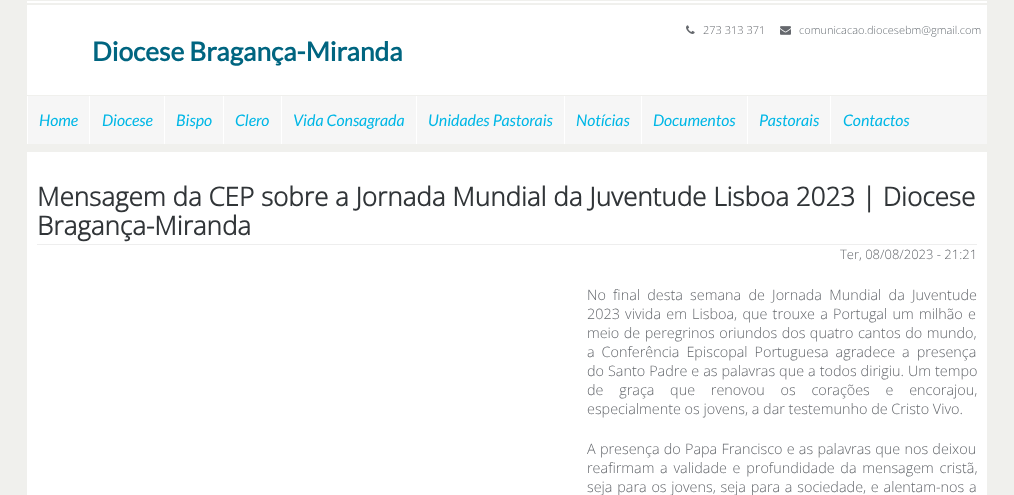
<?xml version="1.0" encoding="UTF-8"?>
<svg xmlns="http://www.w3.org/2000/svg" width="1014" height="495">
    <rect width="100%" height="100%" fill="#F0F0ED"/>
    <rect x="27" y="1" width="960" height="2" fill="#FFFFFF"/>
    <rect x="27" y="5" width="960" height="90" fill="#FFFFFF"/>
    <image x="686" y="25" width="9" height="9" href="img_01.png"/>
    <text x="703" y="34" font-family="Open Sans" font-size="11" font-weight="300" fill="#65686D">273 313 371</text>
    <image x="780" y="26" width="11" height="9" href="img_02.png"/>
    <text x="799" y="34" font-family="Open Sans" font-size="11" font-weight="300" fill="#6A7076">comunicacao.diocesebm@gmail.com</text>
    <text x="92" y="61" font-family="Lato" font-size="26.25" font-weight="700" fill="#006580">Diocese Bragança-Miranda</text>
    <rect x="28" y="96" width="959" height="48" fill="#F6F6F6"/>
    <rect x="27" y="96" width="1" height="48" fill="#FFFFFF"/>
    <text x="39" y="126" font-family="Lato" font-size="16" font-style="italic" fill="#00B7E6">Home</text>
    <rect x="89" y="96" width="1" height="48" fill="#FFFFFF"/>
    <text x="102" y="126" font-family="Lato" font-size="16" font-style="italic" fill="#00B7E6">Diocese</text>
    <rect x="164" y="96" width="1" height="48" fill="#FFFFFF"/>
    <text x="176" y="126" font-family="Lato" font-size="16" font-style="italic" fill="#00B7E6">Bispo</text>
    <rect x="223" y="96" width="1" height="48" fill="#FFFFFF"/>
    <text x="235" y="126" font-family="Lato" font-size="16" font-style="italic" fill="#00B7E6">Clero</text>
    <rect x="281" y="96" width="1" height="48" fill="#FFFFFF"/>
    <text x="293" y="126" font-family="Lato" font-size="16" font-style="italic" fill="#00B7E6">Vida Consagrada</text>
    <rect x="416" y="96" width="1" height="48" fill="#FFFFFF"/>
    <text x="428" y="126" font-family="Lato" font-size="16" font-style="italic" fill="#00B7E6">Unidades Pastorais</text>
    <rect x="564" y="96" width="1" height="48" fill="#FFFFFF"/>
    <text x="576" y="126" font-family="Lato" font-size="16" font-style="italic" fill="#00B7E6">Notícias</text>
    <rect x="641" y="96" width="1" height="48" fill="#FFFFFF"/>
    <text x="653" y="126" font-family="Lato" font-size="16" font-style="italic" fill="#00B7E6">Documentos</text>
    <rect x="747" y="96" width="1" height="48" fill="#FFFFFF"/>
    <text x="759" y="126" font-family="Lato" font-size="16" font-style="italic" fill="#00B7E6">Pastorais</text>
    <rect x="830" y="96" width="1" height="48" fill="#FFFFFF"/>
    <text x="843" y="126" font-family="Lato" font-size="16" font-style="italic" fill="#00B7E6">Contactos</text>
    <rect x="27" y="152" width="960" height="343" fill="#FFFFFF"/>
    <rect x="37" y="244" width="940" height="1" fill="#EEEEEE"/>
    <text font-family="Open Sans" font-size="26" font-weight="700" fill="#313538">
        <tspan x="37" y="206">Mensagem da CEP sobre a Jornada Mundial da Juventude Lisboa 2023 | Diocese</tspan>
        <tspan x="37" y="235">Bragança-Miranda</tspan>
    </text>
    <text x="840" y="259" font-family="Open Sans" font-size="13" font-weight="300" fill="#65686D">Ter, 08/08/2023 - 21:21</text>
    <text font-family="Open Sans" font-size="14.4" font-weight="300" fill="#65686D">
        <tspan x="587" y="300" word-spacing="3.5">No final desta semana de Jornada Mundial da Juventude</tspan>
        <tspan x="587" y="319" word-spacing="1.5">2023 vivida em Lisboa, que trouxe a Portugal um milhão e</tspan>
        <tspan x="587" y="338" word-spacing="0.75">meio de peregrinos oriundos dos quatro cantos do mundo,</tspan>
        <tspan x="587" y="357" word-spacing="3.25">a Conferência Episcopal Portuguesa agradece a presença</tspan>
        <tspan x="587" y="376" word-spacing="0.25">do Santo Padre e as palavras que a todos dirigiu. Um tempo</tspan>
        <tspan x="587" y="395" word-spacing="12">de graça que renovou os corações e encorajou,</tspan>
        <tspan x="587" y="414">especialmente os jovens, a dar testemunho de Cristo Vivo.</tspan>
    </text>
    <text font-family="Open Sans" font-size="14.4" font-weight="300" fill="#65686D">
        <tspan x="587" y="454" word-spacing="0.5">A presença do Papa Francisco e as palavras que nos deixou</tspan>
        <tspan x="587" y="473" word-spacing="2">reafirmam a validade e profundidade da mensagem cristã,</tspan>
        <tspan x="587" y="492" word-spacing="1">seja para os jovens, seja para a sociedade, e alentam-nos a</tspan>
    </text>
</svg>
